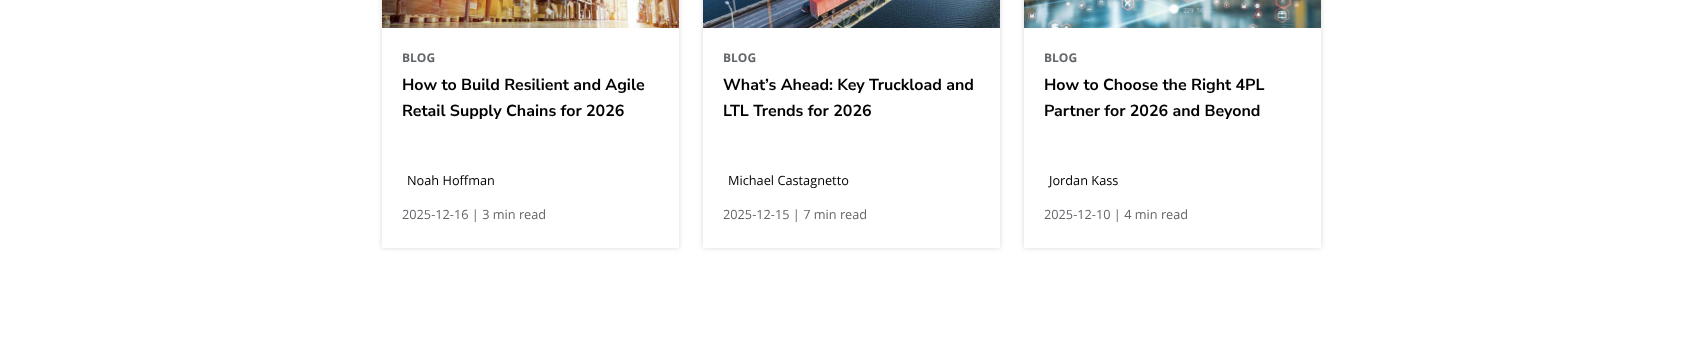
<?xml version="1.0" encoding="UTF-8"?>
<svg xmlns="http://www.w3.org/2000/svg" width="1703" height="347">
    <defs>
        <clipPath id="clip1"><path d="M 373 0 H 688 V 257 H 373 Z M 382 -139 H 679 V 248 H 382 Z" clip-rule="evenodd"/></clipPath>
        <filter id="blur1" x="-50%" y="-200%" width="200%" height="500%"><feGaussianBlur stdDeviation="2.5"/></filter>
        <clipPath id="clip2"><path d="M 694 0 H 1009 V 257 H 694 Z M 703 -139 H 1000 V 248 H 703 Z" clip-rule="evenodd"/></clipPath>
        <clipPath id="clip3"><path d="M 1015 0 H 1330 V 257 H 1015 Z M 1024 -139 H 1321 V 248 H 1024 Z" clip-rule="evenodd"/></clipPath>
    </defs>
    <rect width="100%" height="100%" fill="#FFFFFF"/>
    <g clip-path="url(#clip1)">
        <rect x="382" y="-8" width="297" height="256" fill="#000000" fill-opacity="0.15" filter="url(#blur1)"/>
    </g>
    <image x="382" y="0" width="297" height="28" href="img_01.png"/>
    <text x="402" y="62" font-family="Open Sans" font-size="12" font-weight="700" fill="#63666A">BLOG</text>
    <text font-family="Nunito Sans" font-size="16" font-weight="700" fill="#000000">
        <tspan x="402" y="90">How to Build Resilient and Agile</tspan>
        <tspan x="402" y="116">Retail Supply Chains for 2026</tspan>
    </text>
    <text x="407" y="185" font-family="Open Sans" font-size="12.75" fill="#000000">Noah Hoffman</text>
    <text x="402" y="219" font-family="Open Sans" font-size="12.75" fill="#63666A">2025-12-16 | 3 min read</text>
    <g clip-path="url(#clip2)">
        <rect x="703" y="-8" width="297" height="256" fill="#000000" fill-opacity="0.15" filter="url(#blur1)"/>
    </g>
    <image x="703" y="0" width="297" height="28" href="img_02.png"/>
    <text x="723" y="62" font-family="Open Sans" font-size="12" font-weight="700" fill="#63666A">BLOG</text>
    <text font-family="Nunito Sans" font-size="16" font-weight="700" fill="#000000">
        <tspan x="723" y="90">What’s Ahead: Key Truckload and</tspan>
        <tspan x="723" y="116">LTL Trends for 2026</tspan>
    </text>
    <text x="728" y="185" font-family="Open Sans" font-size="12.75" fill="#000000">Michael Castagnetto</text>
    <text x="723" y="219" font-family="Open Sans" font-size="12.75" fill="#63666A">2025-12-15 | 7 min read</text>
    <g clip-path="url(#clip3)">
        <rect x="1024" y="-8" width="297" height="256" fill="#000000" fill-opacity="0.15" filter="url(#blur1)"/>
    </g>
    <image x="1024" y="0" width="297" height="28" href="img_03.png"/>
    <text x="1044" y="62" font-family="Open Sans" font-size="12" font-weight="700" fill="#63666A">BLOG</text>
    <text font-family="Nunito Sans" font-size="16" font-weight="700" fill="#000000">
        <tspan x="1044" y="90">How to Choose the Right 4PL</tspan>
        <tspan x="1044" y="116">Partner for 2026 and Beyond</tspan>
    </text>
    <text x="1049" y="185" font-family="Open Sans" font-size="12.75" fill="#000000">Jordan Kass</text>
    <text x="1044" y="219" font-family="Open Sans" font-size="12.75" fill="#63666A">2025-12-10 | 4 min read</text>
</svg>
